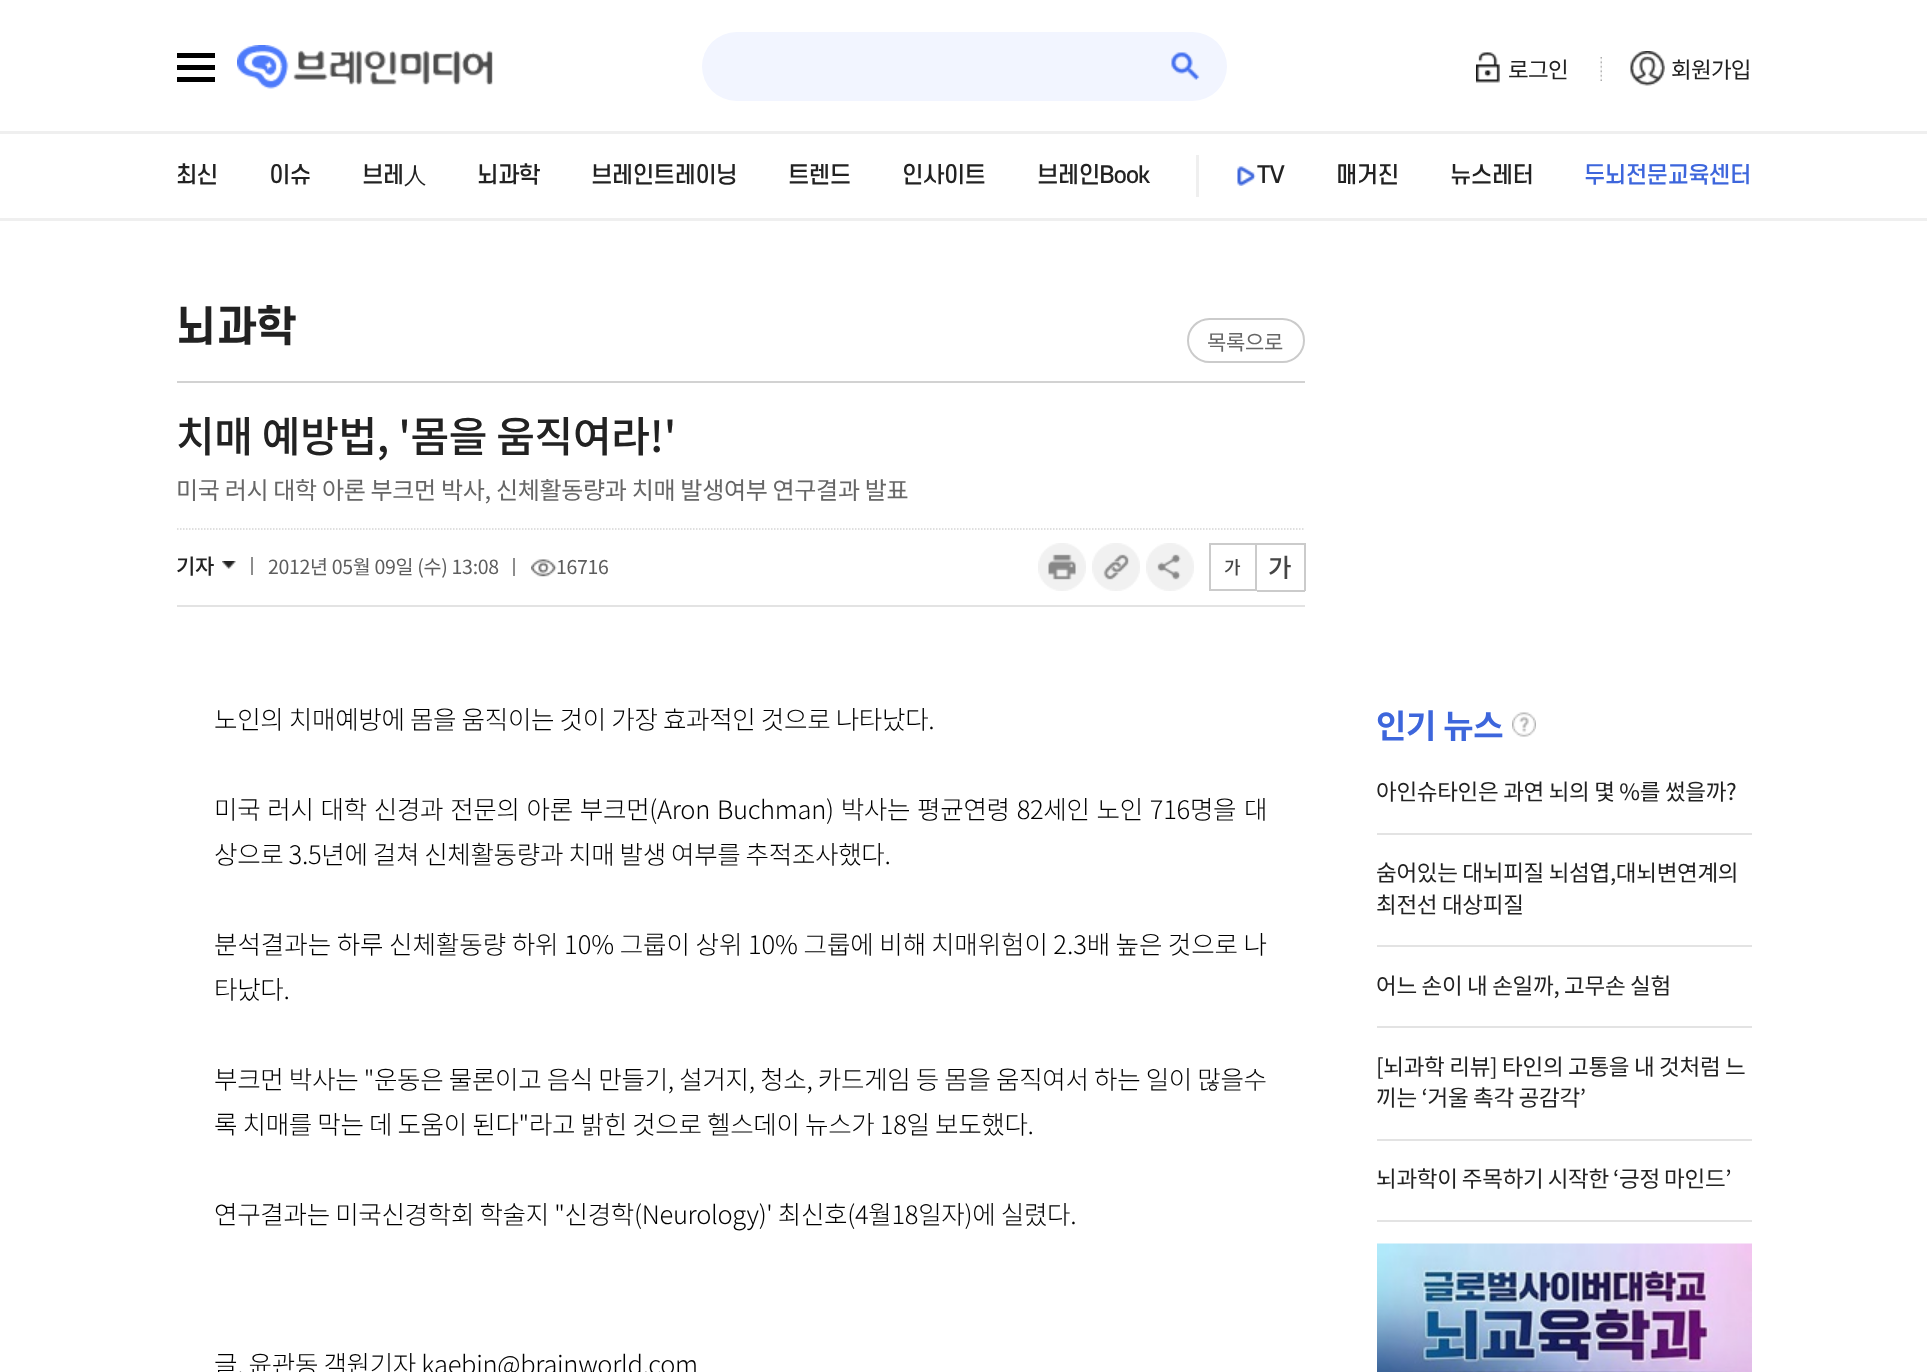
<?xml version="1.0" encoding="UTF-8"?>
<svg xmlns="http://www.w3.org/2000/svg" width="1927" height="1372">
    <rect width="100%" height="100%" fill="#FFFFFF"/>
    <rect x="177" y="53" width="38" height="5" fill="#000000"/>
    <rect x="177" y="77" width="38" height="5" fill="#000000"/>
    <rect x="177" y="65" width="38" height="5" fill="#000000"/>
    <image x="237" y="45" width="256" height="44" href="img_01.png"/>
    <rect x="702" y="32" width="525" height="69" rx="34.5" fill="#F2F5FF"/>
    <image x="1171" y="52" width="29" height="28" href="img_02.png"/>
    <image x="1476" y="52" width="24" height="31" href="img_03.png"/>
    <text x="1508" y="78" font-family="Noto Sans KR" font-size="22.5" letter-spacing="-0.75" fill="#222222">로그인</text>
    <image x="1630" y="51" width="35" height="35" href="img_04.png"/>
    <image x="1600" y="57" width="2" height="24" href="img_05.png"/>
    <text x="1671" y="78" font-family="Noto Sans KR" font-size="22.5" letter-spacing="-0.75" fill="#222222">회원가입</text>
    <rect x="0" y="131" width="1927" height="3" fill="#EFEFEF"/>
    <rect x="0" y="218" width="1927" height="3" fill="#EFEFEF"/>
    <text x="176" y="183" font-family="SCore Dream" font-size="22.5" font-weight="500" letter-spacing="-0.75" fill="#222222">최신</text>
    <text x="269" y="183" font-family="SCore Dream" font-size="22.5" font-weight="500" letter-spacing="-0.75" fill="#222222">이슈</text>
    <text x="362" y="183" font-family="SCore Dream" font-size="22.5" font-weight="500" letter-spacing="-0.75" fill="#222222">브레</text>
    <text x="404" y="183" font-family="WenQuanYi Zen Hei" font-size="22.5" font-weight="500" letter-spacing="-0.75" fill="#222222">人</text>
    <text x="477" y="183" font-family="SCore Dream" font-size="22.5" font-weight="500" letter-spacing="-0.75" fill="#222222">뇌과학</text>
    <text x="591" y="183" font-family="SCore Dream" font-size="22.5" font-weight="500" letter-spacing="-0.75" fill="#222222">브레인트레이닝</text>
    <text x="788" y="183" font-family="SCore Dream" font-size="22.5" font-weight="500" letter-spacing="-0.75" fill="#222222">트렌드</text>
    <text x="902" y="183" font-family="SCore Dream" font-size="22.5" font-weight="500" letter-spacing="-0.75" fill="#222222">인사이트</text>
    <text x="1037" y="183" font-family="SCore Dream" font-size="22.5" font-weight="500" letter-spacing="-0.75" fill="#222222">브레인Book</text>
    <rect x="1196" y="155" width="3" height="42" fill="#EFEFEF"/>
    <image x="1237" y="166" width="19" height="20" href="img_06.png"/>
    <text x="1257" y="183" font-family="SCore Dream" font-size="22.5" font-weight="500" letter-spacing="-0.75" fill="#222222">TV</text>
    <text x="1336" y="183" font-family="SCore Dream" font-size="22.5" font-weight="500" letter-spacing="-0.75" fill="#222222">매거진</text>
    <text x="1450" y="183" font-family="SCore Dream" font-size="22.5" font-weight="500" letter-spacing="-0.75" fill="#222222">뉴스레터</text>
    <text x="1584" y="183" font-family="SCore Dream" font-size="22.5" font-weight="500" letter-spacing="-0.75" fill="#3D66DC">두뇌전문교육센터</text>
    <text x="176" y="342" font-family="SCore Dream" font-size="42" font-weight="700" letter-spacing="-0.3" fill="#222222">뇌과학</text>
    <rect x="177" y="381" width="1128" height="2" fill="#D2D2D2"/>
    <rect x="177" y="605" width="1128" height="2" fill="#E3E3E3"/>
    <rect x="1188" y="319" width="116" height="43" rx="21.5" fill="none" stroke="#CBCBCB" stroke-width="2"/>
    <text x="1207" y="350" font-family="Noto Sans KR" font-size="21" letter-spacing="-0.3" fill="#666666">목록으로</text>
    <text x="176" y="452" font-family="Noto Sans KR" font-size="42" font-weight="500" letter-spacing="-0.3" fill="#222222">치매 예방법, '몸을 움직여라!'</text>
    <text x="176" y="499" font-family="Noto Sans KR" font-size="24" letter-spacing="-0.3" fill="#666666">미국 러시 대학 아론 부크먼 박사, 신체활동량과 치매 발생여부 연구결과 발표</text>
    <path d="M 177 529 H 1305" fill="none" stroke="#D5D5D5" stroke-width="1.5" stroke-dasharray="1.5 1.5"/>
    <text x="176" y="574" font-family="Noto Sans KR" font-size="21" font-weight="500" letter-spacing="-0.3" fill="#222222">기자</text>
    <image x="222" y="561" width="14" height="8" href="img_07.png"/>
    <rect x="251" y="557" width="2" height="18" fill="#8D8D8D"/>
    <text x="268" y="574" font-family="Noto Sans KR" font-size="19.5" letter-spacing="-0.3" fill="#5D5D5D">2012년 05월 09일 (수) 13:08</text>
    <rect x="513" y="558" width="2" height="18" fill="#8D8D8D"/>
    <image x="531" y="559" width="26" height="18" href="img_08.png"/>
    <text x="556" y="574" font-family="Noto Sans KR" font-size="19.5" letter-spacing="-0.3" fill="#5D5D5D">16716</text>
    <image x="1038" y="543" width="48" height="48" href="img_09.png"/>
    <image x="1092" y="543" width="48" height="48" href="img_10.png"/>
    <image x="1146" y="543" width="48" height="48" href="img_11.png"/>
    <rect x="1210" y="544" width="46" height="46" fill="none" stroke="#CBCBCB" stroke-width="2"/>
    <text x="1224" y="574" font-family="Noto Sans KR" font-size="18" font-weight="500" letter-spacing="-0.3" fill="#454545">가</text>
    <rect x="1257" y="543" width="48" height="2" fill="#CBCBCB"/>
    <rect x="1304" y="543" width="2" height="48" fill="#CBCBCB"/>
    <rect x="1257" y="590" width="48" height="2" fill="#CBCBCB"/>
    <text x="1268" y="577" font-family="Noto Sans KR" font-size="25.5" font-weight="500" letter-spacing="-0.3" fill="#454545">가</text>
    <text x="214" y="729" font-family="Noto Sans KR" font-size="25.5" font-weight="300" letter-spacing="-0.3" fill="#000000">노인의 치매예방에 몸을 움직이는 것이 가장 효과적인 것으로 나타났다.</text>
    <text x="214" y="819" word-spacing="1.6" font-family="Noto Sans KR" font-size="25.5" font-weight="300" letter-spacing="-0.3" fill="#000000">미국 러시 대학 신경과 전문의 아론 부크먼(Aron Buchman) 박사는 평균연령 82세인 노인 716명을</text>
    <text x="1244" y="819" font-family="Noto Sans KR" font-size="25.5" font-weight="300" letter-spacing="-0.3" fill="#000000">대</text>
    <text x="214" y="864" word-spacing="-0.25" font-family="Noto Sans KR" font-size="25.5" font-weight="300" letter-spacing="-0.3" fill="#000000">상으로 3.5년에 걸쳐 신체활동량과 치매 발생 여부를 추적조사했다.</text>
    <text x="214" y="954" font-family="Noto Sans KR" font-size="25.5" font-weight="300" letter-spacing="-0.05" fill="#000000">분석결과는 하루 신체활동량 하위 10% 그룹이 상위 10% 그룹에 비해</text>
    <text x="931" y="954" font-family="Noto Sans KR" font-size="25.5" font-weight="300" letter-spacing="-0.1" fill="#000000">치매위험이 2.3배 높은 것으로 나</text>
    <text x="214" y="999" font-family="Noto Sans KR" font-size="25.5" font-weight="300" letter-spacing="-0.3" fill="#000000">타났다.</text>
    <text font-family="Noto Sans KR" font-size="25.5" font-weight="300" letter-spacing="-0.3" fill="#000000">
        <tspan x="214" y="1089">부크먼 박사는 "운동은 물론이고 음식 만들기, 설거지, 청소, 카드게임 등 몸을 움직여서 하는 일이 많을수</tspan>
        <tspan x="214" y="1134">록 치매를 막는 데 도움이 된다"라고 밝힌 것으로 헬스데이 뉴스가 18일 보도했다.</tspan>
    </text>
    <text x="214" y="1224" font-family="Noto Sans KR" font-size="25.5" font-weight="300" letter-spacing="-0.3" fill="#000000">연구결과는 미국신경학회 학술지 "신경학(Neurology)' 최신호(4월18일자)에 실렸다.</text>
    <text x="214" y="1374" font-family="Noto Sans KR" font-size="25.5" font-weight="300" letter-spacing="-0.3" fill="#000000">글. 윤관동 객원기자 kaebin@brainworld.com</text>
    <text x="1376" y="738" font-family="Noto Sans KR" font-size="33" font-weight="700" letter-spacing="-0.3" fill="#3D66DC">인기 뉴스</text>
    <image x="1512" y="712" width="24" height="25" href="img_12.png"/>
    <rect x="1377" y="833" width="375" height="2" fill="#E3E3E3"/>
    <text x="1376" y="800" font-family="Noto Sans KR" font-size="22.5" letter-spacing="-0.3" fill="#222222">아인슈타인은 과연 뇌의 몇 %를 썼을까?</text>
    <rect x="1377" y="945" width="375" height="2" fill="#E3E3E3"/>
    <text font-family="Noto Sans KR" font-size="22.5" letter-spacing="-0.3" fill="#222222">
        <tspan x="1376" y="881">숨어있는 대뇌피질 뇌섬엽,대뇌변연계의</tspan>
        <tspan x="1376" y="913">최전선 대상피질</tspan>
    </text>
    <rect x="1377" y="1026" width="375" height="2" fill="#E3E3E3"/>
    <text x="1376" y="994" font-family="Noto Sans KR" font-size="22.5" letter-spacing="-0.3" fill="#222222">어느 손이 내 손일까, 고무손 실험</text>
    <rect x="1377" y="1139" width="375" height="2" fill="#E3E3E3"/>
    <text font-family="Noto Sans KR" font-size="22.5" letter-spacing="-0.3" fill="#222222">
        <tspan x="1376" y="1075">[뇌과학 리뷰] 타인의 고통을 내 것처럼 느</tspan>
        <tspan x="1376" y="1106">끼는 ‘거울 촉각 공감각’</tspan>
    </text>
    <rect x="1377" y="1220" width="375" height="2" fill="#E3E3E3"/>
    <text x="1376" y="1187" word-spacing="-0.5" font-family="Noto Sans KR" font-size="22.5" letter-spacing="-0.3" fill="#222222">뇌과학이 주목하기 시작한 ‘긍정 마인드’</text>
    <image x="1377" y="1243" width="375" height="129" href="img_13.png"/>
</svg>
